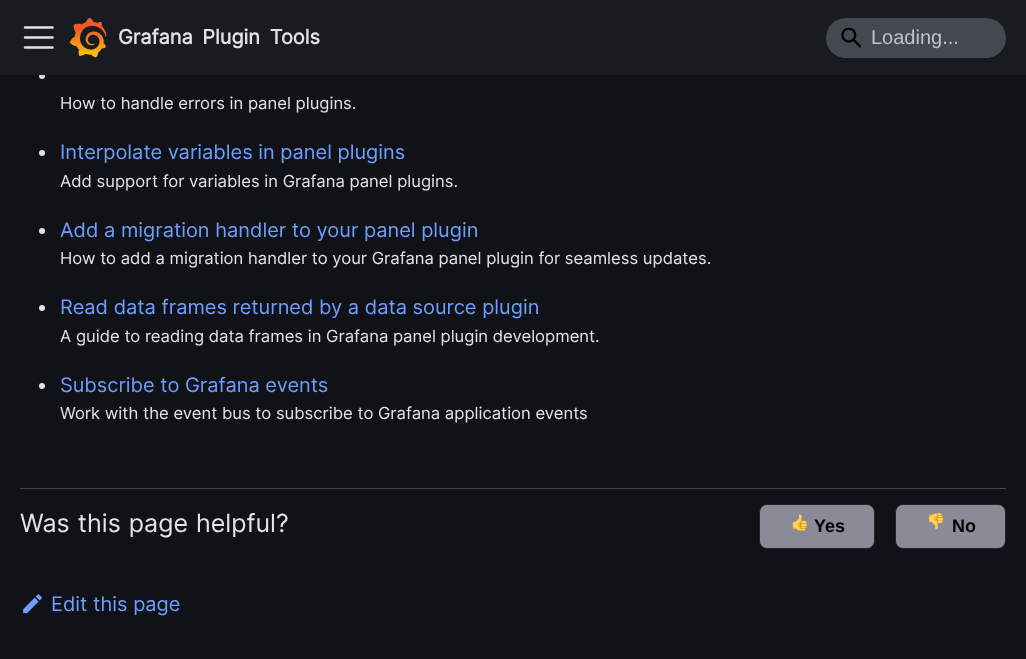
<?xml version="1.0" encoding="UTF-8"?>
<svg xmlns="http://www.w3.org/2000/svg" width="1026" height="659">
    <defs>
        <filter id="blur1" x="-50%" y="-200%" width="200%" height="500%"><feGaussianBlur stdDeviation="1"/></filter>
    </defs>
    <rect width="100%" height="100%" fill="#111217"/>
    <circle cx="42" cy="76" r="3" fill="#E3E3E3"/>
    <rect x="0" y="1" width="1026" height="75" fill="#000000" fill-opacity="0.1" filter="url(#blur1)"/>
    <rect x="0" y="0" width="1026" height="75" fill="#181B1F"/>
    <path d="M 25 27.5 H 52.5 M 25 37.5 H 52.5 M 25 47.5 H 52.5" fill="none" stroke="#E3E3E3" stroke-width="2.5" stroke-linecap="round"/>
    <image x="69" y="18" width="38" height="40" href="img_01.png"/>
    <text x="118" y="44" word-spacing="4" font-family="Inter" font-size="20" font-weight="700" fill="#E3E3E3">Grafana Plugin Tools</text>
    <rect x="826" y="18" width="180" height="40" rx="20" fill="#444950"/>
    <image x="841" y="28" width="20" height="20" href="img_02.png"/>
    <text x="871" y="44" font-family="Liberation Sans" font-size="20" fill="#BEC3C9">Loading...</text>
    <text x="60" y="109" font-family="Inter" font-size="16.65" fill="#E3E3E3">How to handle errors in panel plugins.</text>
    <circle cx="42" cy="153" r="3" fill="#E3E3E3"/>
    <text x="60" y="159" font-family="Inter" font-size="20" fill="#6E9FFF">Interpolate variables in panel plugins</text>
    <text x="60" y="187" font-family="Inter" font-size="16.65" fill="#E3E3E3">Add support for variables in Grafana panel plugins.</text>
    <circle cx="42" cy="231" r="3" fill="#E3E3E3"/>
    <text x="60" y="237" font-family="Inter" font-size="20" fill="#6E9FFF">Add a migration handler to your panel plugin</text>
    <text x="60" y="264" font-family="Inter" font-size="16.65" fill="#E3E3E3">How to add a migration handler to your Grafana panel plugin for seamless updates.</text>
    <circle cx="42" cy="308" r="3" fill="#E3E3E3"/>
    <text x="60" y="314" font-family="Inter" font-size="20" fill="#6E9FFF">Read data frames returned by a data source plugin</text>
    <text x="60" y="342" font-family="Inter" font-size="16.65" fill="#E3E3E3">A guide to reading data frames in Grafana panel plugin development.</text>
    <circle cx="42" cy="386" r="3" fill="#E3E3E3"/>
    <text x="60" y="392" font-family="Inter" font-size="20" fill="#6E9FFF">Subscribe to Grafana events</text>
    <text x="60" y="419" font-family="Inter" font-size="16.65" fill="#E3E3E3">Work with the event bus to subscribe to Grafana application events</text>
    <rect x="20" y="488" width="986" height="1" fill="#444950"/>
    <text x="20" y="532" word-spacing="1" font-family="Inter" font-size="25" fill="#E3E3E3">Was this page helpful?</text>
    <rect x="759.5" y="504.5" width="115" height="44" rx="7.5" fill="#8B8B97" stroke="#22252B"/>
    <image x="792" y="514" width="15" height="17" href="img_03.png"/>
    <text x="814" y="532" font-family="Liberation Sans" font-size="18" font-weight="700" fill="#000000">Yes</text>
    <rect x="895.5" y="504.5" width="110" height="44" rx="7.5" fill="#8B8B97" stroke="#22252B"/>
    <image x="929" y="513" width="15" height="17" href="img_04.png"/>
    <text x="952" y="532" font-family="Liberation Sans" font-size="18" font-weight="700" fill="#000000">No</text>
    <image x="23" y="594" width="19" height="20" href="img_05.png"/>
    <text x="51" y="611" font-family="Inter" font-size="20" fill="#6E9FFF">Edit this page</text>
</svg>
